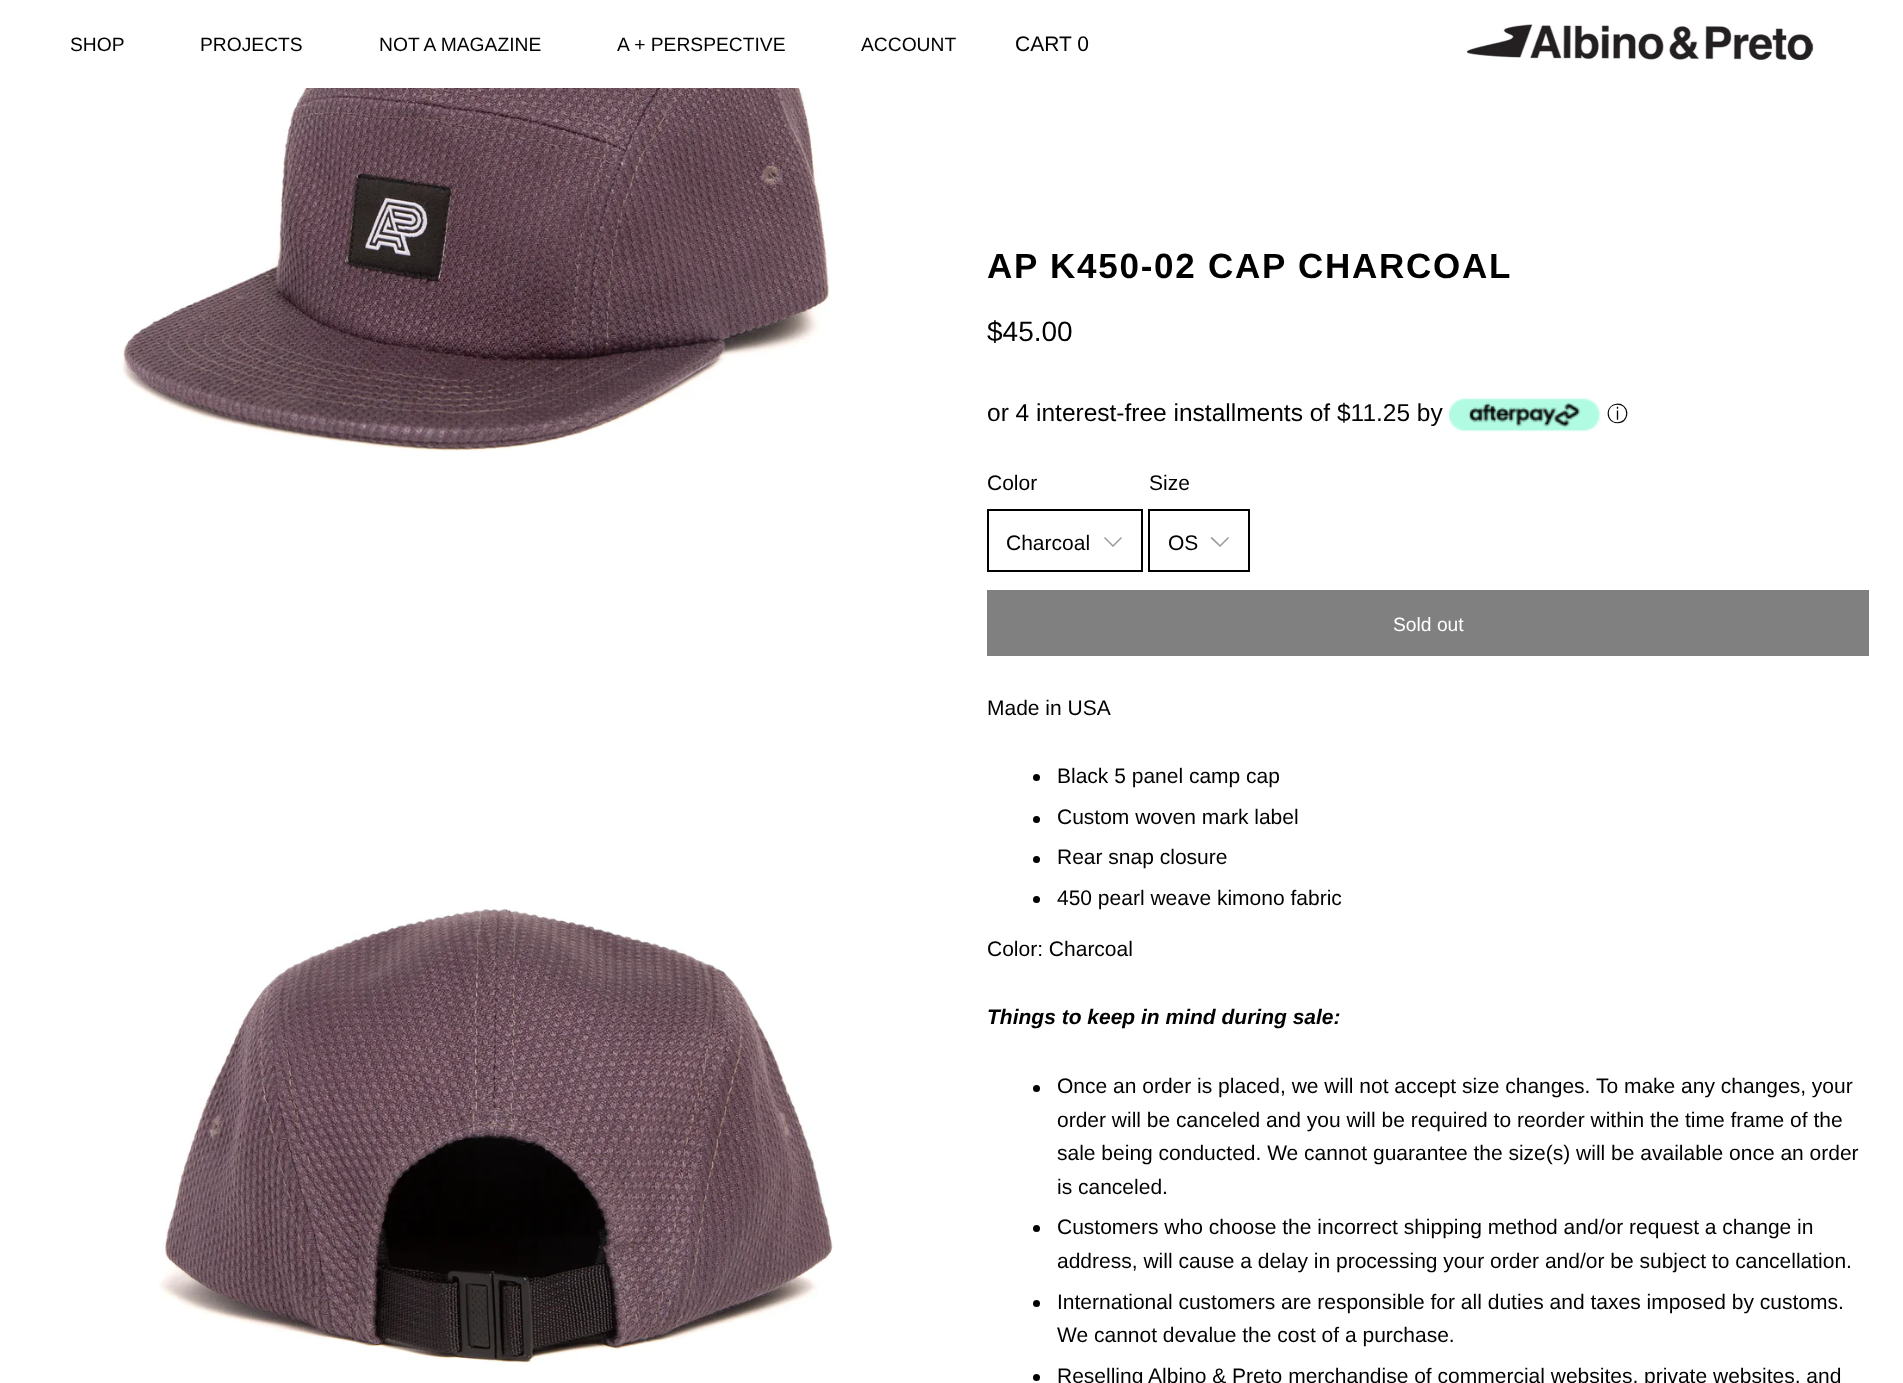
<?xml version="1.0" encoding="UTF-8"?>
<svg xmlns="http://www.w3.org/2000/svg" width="1903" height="1383">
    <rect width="100%" height="100%" fill="#FFFFFF"/>
    <text x="70" y="51" font-family="Liberation Sans" font-size="19.25" fill="#000000">SHOP</text>
    <text x="200" y="51" font-family="Liberation Sans" font-size="19.25" fill="#000000">PROJECTS</text>
    <text x="379" y="51" font-family="Liberation Sans" font-size="19.25" fill="#000000">NOT A MAGAZINE</text>
    <text x="617" y="51" font-family="Liberation Sans" font-size="19.25" fill="#000000">A + PERSPECTIVE</text>
    <text x="861" y="51" font-family="Liberation Sans" font-size="19.25" fill="#000000">ACCOUNT</text>
    <text x="1015" y="51" font-family="Liberation Sans" font-size="21" fill="#000000">CART 0</text>
    <image x="1467" y="24" width="347" height="37" href="img_01.png"/>
    <image x="121" y="88" width="709" height="364" href="img_02.png"/>
    <image x="158" y="908" width="675" height="457" href="img_03.png"/>
    <text x="987" y="278" font-family="Liberation Sans" font-size="35" font-weight="700" letter-spacing="1.75" fill="#000000">AP K450-02 CAP CHARCOAL</text>
    <text x="987" y="341" font-family="Liberation Sans" font-size="28" fill="#000000">$45.00</text>
    <text x="987" y="421" font-family="Liberation Sans" font-size="24.5" fill="#000000">or 4 interest-free installments of $11.25 by</text>
    <image x="1449" y="398" width="152" height="34" href="img_04.png"/>
    <text x="1607" y="421" font-family="WenQuanYi Zen Hei" font-size="21" font-weight="500" fill="#000000">ⓘ</text>
    <text x="987" y="490" font-family="Liberation Sans" font-size="21" fill="#000000">Color</text>
    <path d="M 1113 547 L 1104 538 L 1105 537 L 1113 545 L 1121 537 L 1122 538 Z" fill="#999999"/>
    <rect x="988" y="510" width="154" height="61" fill="none" stroke="#000000" stroke-width="2"/>
    <text x="1006" y="550" font-family="Liberation Sans" font-size="21" fill="#000000">Charcoal</text>
    <text x="1149" y="490" font-family="Liberation Sans" font-size="21" fill="#000000">Size</text>
    <path d="M 1220 547 L 1210.5 538 L 1212 537 L 1220 545 L 1228 537 L 1229 538 Z" fill="#999999"/>
    <rect x="1149" y="510" width="100" height="61" fill="none" stroke="#000000" stroke-width="2"/>
    <text x="1168" y="550" font-family="Liberation Sans" font-size="21" fill="#000000">OS</text>
    <rect x="987" y="590" width="882" height="66" fill="#808080"/>
    <text x="1393" y="631" font-family="Liberation Sans" font-size="19.25" fill="#FFFFFF">Sold out</text>
    <text x="987" y="715" font-family="Liberation Sans" font-size="21" fill="#000000">Made in USA</text>
    <circle cx="1036.5" cy="777.5" r="3.5" fill="#000000"/>
    <text x="1057" y="783" font-family="Liberation Sans" font-size="21" fill="#000000">Black 5 panel camp cap</text>
    <circle cx="1036.5" cy="819.5" r="3.5" fill="#000000"/>
    <text x="1057" y="824" font-family="Liberation Sans" font-size="21" fill="#000000">Custom woven mark label</text>
    <circle cx="1036.5" cy="859.5" r="3.5" fill="#000000"/>
    <text x="1057" y="864" font-family="Liberation Sans" font-size="21" fill="#000000">Rear snap closure</text>
    <circle cx="1036.5" cy="899.5" r="3.5" fill="#000000"/>
    <text x="1057" y="905" font-family="Liberation Sans" font-size="21" fill="#000000">450 pearl weave kimono fabric</text>
    <text x="987" y="956" font-family="Liberation Sans" font-size="21" fill="#000000">Color: Charcoal</text>
    <text x="987" y="1024" font-family="Liberation Sans" font-size="21" font-weight="700" font-style="italic" fill="#000000">Things to keep in mind during sale:</text>
    <circle cx="1036.5" cy="1088.5" r="3.5" fill="#000000"/>
    <text font-family="Liberation Sans" font-size="21" fill="#000000">
        <tspan x="1057" y="1093">Once an order is placed, we will not accept size changes. To make any changes, your</tspan>
        <tspan x="1057" y="1127">order will be canceled and you will be required to reorder within the time frame of the</tspan>
        <tspan x="1057" y="1160">sale being conducted. We cannot guarantee the size(s) will be available once an order</tspan>
        <tspan x="1057" y="1194">is canceled.</tspan>
    </text>
    <circle cx="1036.5" cy="1228.5" r="3.5" fill="#000000"/>
    <text font-family="Liberation Sans" font-size="21" fill="#000000">
        <tspan x="1057" y="1234">Customers who choose the incorrect shipping method and/or request a change in</tspan>
        <tspan x="1057" y="1268">address, will cause a delay in processing your order and/or be subject to cancellation.</tspan>
    </text>
    <circle cx="1036.5" cy="1303.5" r="3.5" fill="#000000"/>
    <text font-family="Liberation Sans" font-size="21" fill="#000000">
        <tspan x="1057" y="1309">International customers are responsible for all duties and taxes imposed by customs.</tspan>
        <tspan x="1057" y="1342">We cannot devalue the cost of a purchase.</tspan>
    </text>
    <circle cx="1036.5" cy="1377.5" r="3.5" fill="#000000"/>
    <text x="1057" y="1383" font-family="Liberation Sans" font-size="21" fill="#000000">Reselling Albino &amp; Preto merchandise of commercial websites, private websites, and</text>
</svg>
